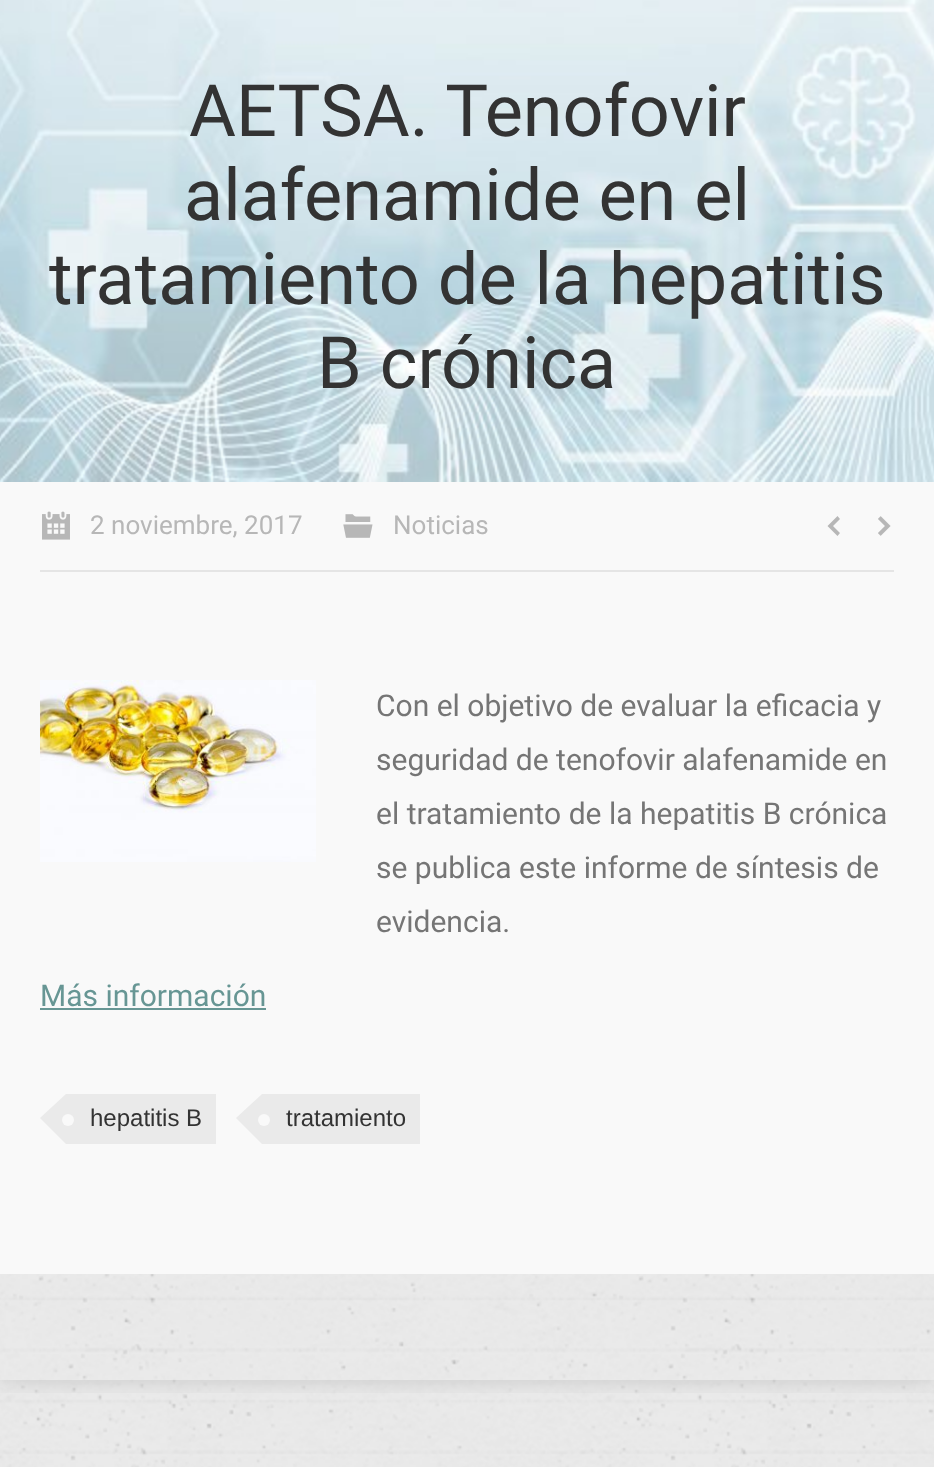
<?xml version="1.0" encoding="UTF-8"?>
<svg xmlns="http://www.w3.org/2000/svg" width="934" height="1467">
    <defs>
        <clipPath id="clip1"><rect x="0" y="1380" width="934" height="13"/></clipPath>
        <filter id="blur1" x="-50%" y="-200%" width="200%" height="500%"><feGaussianBlur stdDeviation="12"/></filter>
    </defs>
    <rect width="100%" height="100%" fill="#FFFFFF"/>
    <image x="0" y="1274" width="934" height="193" href="img_01.png"/>
    <g clip-path="url(#clip1)">
        <rect x="0" y="0" width="934" height="1380" fill="#000000" fill-opacity="0.15" filter="url(#blur1)"/>
    </g>
    <rect x="0" y="482" width="934" height="792" fill="#F9F9F9"/>
    <image x="0" y="0" width="934" height="482" href="img_02.png"/>
    <text x="189" y="136" font-family="Roboto" font-size="72" fill="#333333">AETSA. Tenofovir</text>
    <text x="184" y="220" font-family="Roboto" font-size="72" fill="#333333">alafenamide en el</text>
    <text x="49" y="304" font-family="Roboto" font-size="72" fill="#333333">tratamiento de la hepatitis</text>
    <text x="317" y="388" font-family="Roboto" font-size="72" fill="#333333">B crónica</text>
    <rect x="40" y="570" width="854" height="2" fill="#E5E5E5"/>
    <image x="42" y="511" width="28" height="29" href="img_03.png"/>
    <text x="90" y="534" font-family="Roboto" font-size="26" fill="#B7B7B7">2 noviembre, 2017</text>
    <image x="343" y="514" width="30" height="24" href="img_04.png"/>
    <text x="393" y="534" font-family="Roboto" font-size="26" fill="#B7B7B7">Noticias</text>
    <path d="M 840 533 L 833 526 L 840 519 L 837.5 516 L 827.5 526 L 837.5 536 Z" fill="#B7B7B7"/>
    <image x="878" y="516" width="13" height="20" href="img_05.png"/>
    <image x="40" y="680" width="276" height="182" href="img_06.png"/>
    <text font-family="Roboto" font-size="30" fill="#757575">
        <tspan x="376" y="716">Con el objetivo de evaluar la eficacia y</tspan>
        <tspan x="376" y="770">seguridad de tenofovir alafenamide en</tspan>
        <tspan x="376" y="824">el tratamiento de la hepatitis B crónica</tspan>
        <tspan x="376" y="878">se publica este informe de síntesis de</tspan>
        <tspan x="376" y="932">evidencia.</tspan>
    </text>
    <text x="40" y="1006" font-family="Roboto" font-size="30" fill="#679694">Más información</text>
    <rect x="40" y="1008" width="226" height="2" fill="#679694"/>
    <rect x="66" y="1094" width="150" height="50" fill="#EAEAEA"/>
    <path d="M 66 1094 V 1144 L 40 1118 Z" fill="#EAEAEA"/>
    <circle cx="68" cy="1120" r="6" fill="#F9F9F9"/>
    <text x="90" y="1126" font-family="Liberation Sans" font-size="24" fill="#333333">hepatitis B</text>
    <rect x="262" y="1094" width="158" height="50" fill="#EAEAEA"/>
    <path d="M 262 1094 V 1144 L 236 1118 Z" fill="#EAEAEA"/>
    <circle cx="264" cy="1120" r="6" fill="#F9F9F9"/>
    <text x="286" y="1126" font-family="Liberation Sans" font-size="24" fill="#333333">tratamiento</text>
</svg>
